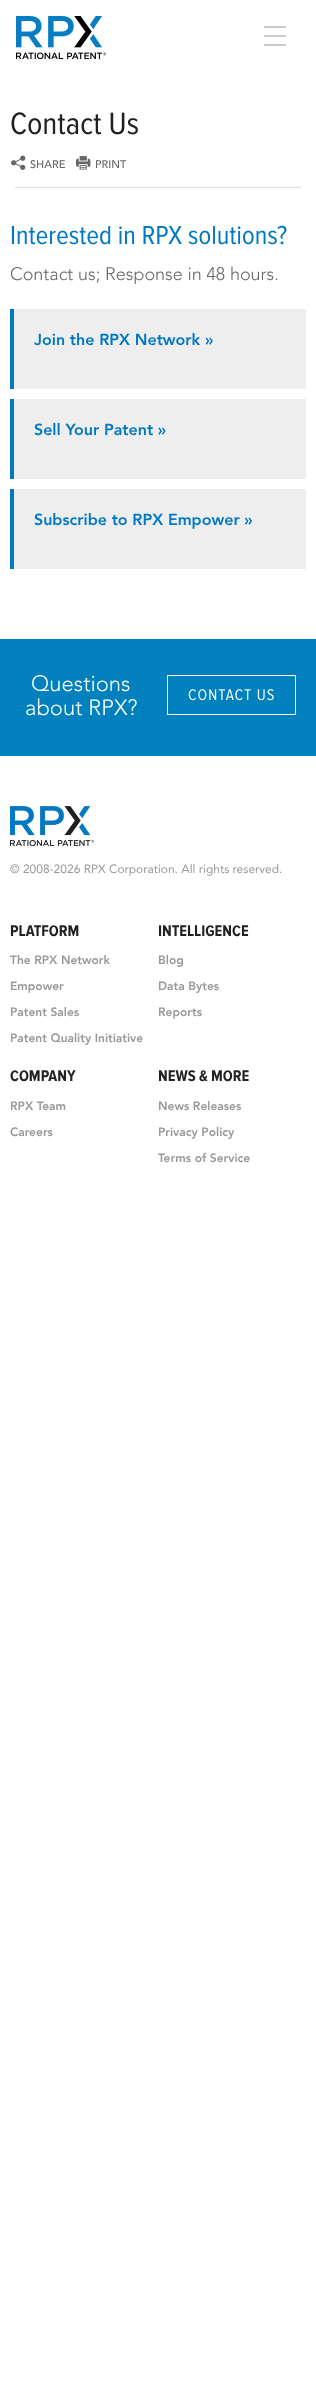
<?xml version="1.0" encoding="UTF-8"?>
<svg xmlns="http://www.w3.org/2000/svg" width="316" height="2398">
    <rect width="100%" height="100%" fill="#FFFFFF"/>
    <image x="16" y="16" width="90" height="44" href="img_01.png"/>
    <rect x="264" y="26" width="22" height="2" fill="#CCCCCC"/>
    <rect x="264" y="35" width="22" height="2" fill="#CCCCCC"/>
    <rect x="264" y="44" width="22" height="2" fill="#CCCCCC"/>
    <image x="11" y="112" width="127" height="23" href="img_02.png"/>
    <image x="11" y="155" width="15" height="15" href="img_03.png"/>
    <text x="30" y="168" font-family="Avenir" font-size="11" font-weight="500" fill="#666666">SHARE</text>
    <image x="76" y="156" width="15" height="14" href="img_04.png"/>
    <text x="95" y="168" font-family="Avenir" font-size="11" font-weight="500" fill="#666666">PRINT</text>
    <rect x="15" y="187" width="286" height="1" fill="#DDDDDD"/>
    <image x="11" y="225" width="276" height="20" href="img_05.png"/>
    <text x="10" y="280" font-family="Avenir" font-size="18" font-weight="300" fill="#666666">Contact us; Response in 48 hours.</text>
    <rect x="14" y="309" width="292" height="80" fill="#EEEEEE"/>
    <rect x="10" y="309" width="4" height="80" fill="#0079C2"/>
    <text x="34" y="345" font-family="Avenir" font-size="16" font-weight="900" fill="#0079C2">Join the RPX Network »</text>
    <rect x="14" y="399" width="292" height="80" fill="#EEEEEE"/>
    <rect x="10" y="399" width="4" height="80" fill="#0079C2"/>
    <text x="34" y="435" font-family="Avenir" font-size="16" font-weight="900" fill="#0079C2">Sell Your Patent »</text>
    <rect x="14" y="489" width="292" height="80" fill="#EEEEEE"/>
    <rect x="10" y="489" width="4" height="80" fill="#0079C2"/>
    <text x="34" y="525" font-family="Avenir" font-size="16" font-weight="900" fill="#0079C2">Subscribe to RPX Empower »</text>
    <rect x="0" y="639" width="316" height="117" fill="#0081BE"/>
    <text x="31" y="691" font-family="Avenir" font-size="22" font-weight="300" fill="#FFFFFF">Questions</text>
    <text x="25" y="715" font-family="Avenir" font-size="22" font-weight="300" fill="#FFFFFF">about RPX?</text>
    <rect x="167.5" y="675.5" width="128" height="39" fill="none" stroke="#FFFFFF"/>
    <image x="188" y="689" width="86" height="12" href="img_06.png"/>
    <image x="10" y="806" width="84" height="40" href="img_07.png"/>
    <text x="10" y="873" font-family="Avenir" font-size="12" fill="#999999">© 2008-2026 RPX Corporation. All rights reserved.</text>
    <text x="10" y="936" font-family="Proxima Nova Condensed" font-size="16" font-weight="700" fill="#222222">PLATFORM</text>
    <text x="10" y="964" font-family="Avenir" font-size="12" font-weight="900" fill="#999999">The RPX Network</text>
    <text x="10" y="990" font-family="Avenir" font-size="12" font-weight="900" fill="#999999">Empower</text>
    <text x="10" y="1016" font-family="Avenir" font-size="12" font-weight="900" fill="#999999">Patent Sales</text>
    <text x="10" y="1042" font-family="Avenir" font-size="12" font-weight="900" fill="#999999">Patent Quality Initiative</text>
    <text x="158" y="936" font-family="Proxima Nova Condensed" font-size="16" font-weight="700" fill="#222222">INTELLIGENCE</text>
    <text x="158" y="964" font-family="Avenir" font-size="12" font-weight="900" fill="#999999">Blog</text>
    <text x="158" y="990" font-family="Avenir" font-size="12" font-weight="900" fill="#999999">Data Bytes</text>
    <text x="158" y="1016" font-family="Avenir" font-size="12" font-weight="900" fill="#999999">Reports</text>
    <text x="10" y="1081" font-family="Proxima Nova Condensed" font-size="16" font-weight="700" fill="#222222">COMPANY</text>
    <text x="10" y="1110" font-family="Avenir" font-size="12" font-weight="900" fill="#999999">RPX Team</text>
    <text x="10" y="1136" font-family="Avenir" font-size="12" font-weight="900" fill="#999999">Careers</text>
    <text x="158" y="1081" font-family="Proxima Nova Condensed" font-size="16" font-weight="700" fill="#222222">NEWS &amp; MORE</text>
    <text x="158" y="1110" font-family="Avenir" font-size="12" font-weight="900" fill="#999999">News Releases</text>
    <text x="158" y="1136" font-family="Avenir" font-size="12" font-weight="900" fill="#999999">Privacy Policy</text>
    <text x="158" y="1162" font-family="Avenir" font-size="12" font-weight="900" fill="#999999">Terms of Service</text>
</svg>
